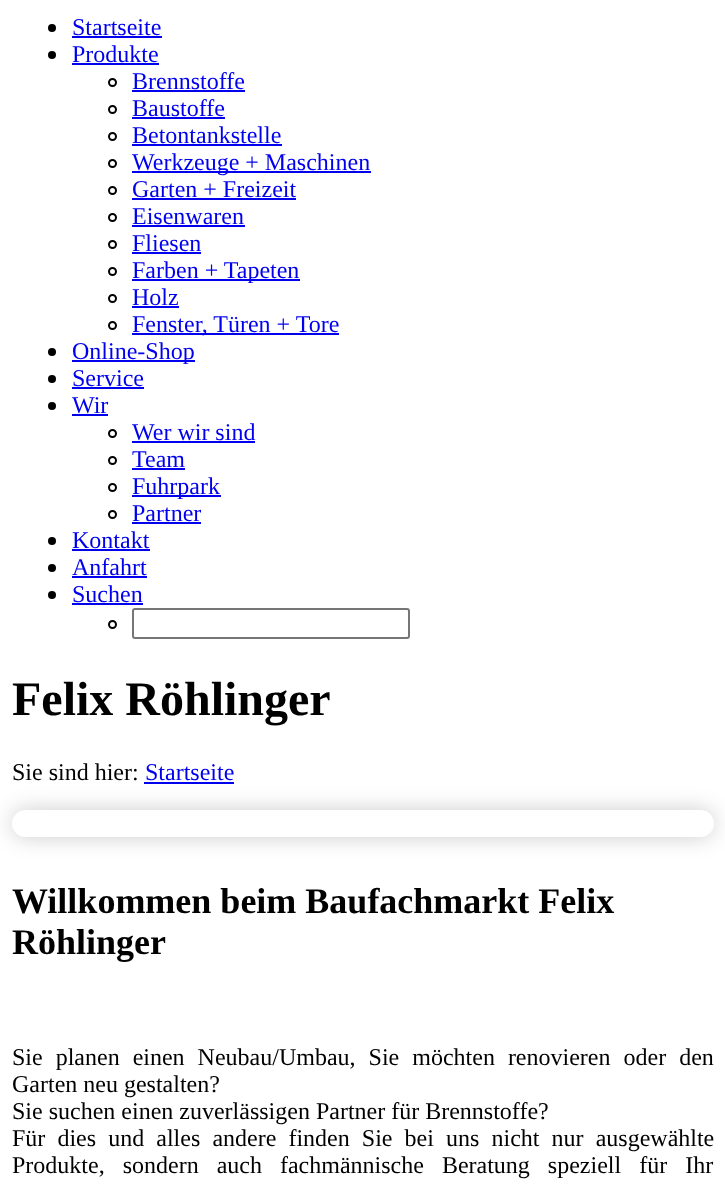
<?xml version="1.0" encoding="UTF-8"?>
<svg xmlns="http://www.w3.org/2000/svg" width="725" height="1186">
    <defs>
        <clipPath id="clip1"><path d="M 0 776 H 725 V 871 H 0 Z M 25.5 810 H 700.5 C 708 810 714 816 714 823.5 C 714 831 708 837 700.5 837 H 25.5 C 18 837 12 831 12 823.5 C 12 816 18 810 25.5 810 Z" clip-rule="evenodd"/></clipPath>
        <filter id="blur1" x="-50%" y="-200%" width="200%" height="500%"><feGaussianBlur stdDeviation="11"/></filter>
    </defs>
    <rect width="100%" height="100%" fill="#FFFFFF"/>
    <circle cx="52" cy="28" r="4" fill="#000000"/>
    <text x="72" y="35" font-family="Liberation Serif" font-size="24" fill="#0000EE">Startseite</text>
    <rect x="72" y="36" width="90" height="2" fill="#0000EE"/>
    <circle cx="52" cy="55" r="4" fill="#000000"/>
    <text x="72" y="62" font-family="Liberation Serif" font-size="24" fill="#0000EE">Produkte</text>
    <rect x="72" y="63" width="87" height="2" fill="#0000EE"/>
    <circle cx="112.5" cy="82.5" r="3.5" fill="none" stroke="#000000" stroke-width="2"/>
    <text x="132" y="89" font-family="Liberation Serif" font-size="24" fill="#0000EE">Brennstoffe</text>
    <rect x="132" y="90" width="113" height="2" fill="#0000EE"/>
    <circle cx="112.5" cy="109.5" r="3.5" fill="none" stroke="#000000" stroke-width="2"/>
    <text x="132" y="116" font-family="Liberation Serif" font-size="24" fill="#0000EE">Baustoffe</text>
    <rect x="132" y="117" width="93" height="2" fill="#0000EE"/>
    <circle cx="112.5" cy="136.5" r="3.5" fill="none" stroke="#000000" stroke-width="2"/>
    <text x="132" y="143" font-family="Liberation Serif" font-size="24" fill="#0000EE">Betontankstelle</text>
    <rect x="132" y="144" width="150" height="2" fill="#0000EE"/>
    <circle cx="112.5" cy="163.5" r="3.5" fill="none" stroke="#000000" stroke-width="2"/>
    <rect x="132" y="171" width="239" height="2" fill="#0000EE"/>
    <text x="132" y="170" font-family="Liberation Serif" font-size="24" fill="#0000EE">Werkzeuge + Maschinen</text>
    <circle cx="112.5" cy="190.5" r="3.5" fill="none" stroke="#000000" stroke-width="2"/>
    <text x="132" y="197" font-family="Liberation Serif" font-size="24" fill="#0000EE">Garten + Freizeit</text>
    <rect x="132" y="198" width="164" height="2" fill="#0000EE"/>
    <circle cx="112.5" cy="217.5" r="3.5" fill="none" stroke="#000000" stroke-width="2"/>
    <text x="132" y="224" font-family="Liberation Serif" font-size="24" fill="#0000EE">Eisenwaren</text>
    <rect x="132" y="225" width="113" height="2" fill="#0000EE"/>
    <circle cx="112.5" cy="244.5" r="3.5" fill="none" stroke="#000000" stroke-width="2"/>
    <text x="132" y="251" font-family="Liberation Serif" font-size="24" fill="#0000EE">Fliesen</text>
    <rect x="132" y="252" width="69" height="2" fill="#0000EE"/>
    <circle cx="112.5" cy="271.5" r="3.5" fill="none" stroke="#000000" stroke-width="2"/>
    <rect x="132" y="279" width="168" height="2" fill="#0000EE"/>
    <text x="132" y="278" font-family="Liberation Serif" font-size="24" fill="#0000EE">Farben + Tapeten</text>
    <circle cx="112.5" cy="298.5" r="3.5" fill="none" stroke="#000000" stroke-width="2"/>
    <text x="132" y="305" font-family="Liberation Serif" font-size="24" fill="#0000EE">Holz</text>
    <rect x="132" y="306" width="47" height="2" fill="#0000EE"/>
    <circle cx="112.5" cy="325.5" r="3.5" fill="none" stroke="#000000" stroke-width="2"/>
    <rect x="132" y="333" width="207" height="2" fill="#0000EE"/>
    <text x="132" y="332" font-family="Liberation Serif" font-size="24" fill="#0000EE">Fenster, Türen + Tore</text>
    <circle cx="52" cy="352" r="4" fill="#000000"/>
    <rect x="72" y="360" width="123" height="2" fill="#0000EE"/>
    <text x="72" y="359" font-family="Liberation Serif" font-size="24" fill="#0000EE">Online-Shop</text>
    <circle cx="52" cy="379" r="4" fill="#000000"/>
    <text x="72" y="386" font-family="Liberation Serif" font-size="24" fill="#0000EE">Service</text>
    <rect x="72" y="387" width="72" height="2" fill="#0000EE"/>
    <circle cx="52" cy="406" r="4" fill="#000000"/>
    <text x="72" y="413" font-family="Liberation Serif" font-size="24" fill="#0000EE">Wir</text>
    <rect x="72" y="414" width="36" height="2" fill="#0000EE"/>
    <circle cx="112.5" cy="433.5" r="3.5" fill="none" stroke="#000000" stroke-width="2"/>
    <text x="132" y="440" font-family="Liberation Serif" font-size="24" fill="#0000EE">Wer wir sind</text>
    <rect x="132" y="441" width="123" height="2" fill="#0000EE"/>
    <circle cx="112.5" cy="460.5" r="3.5" fill="none" stroke="#000000" stroke-width="2"/>
    <text x="132" y="467" font-family="Liberation Serif" font-size="24" fill="#0000EE">Team</text>
    <rect x="132" y="468" width="53" height="2" fill="#0000EE"/>
    <circle cx="112.5" cy="487.5" r="3.5" fill="none" stroke="#000000" stroke-width="2"/>
    <rect x="132" y="495" width="89" height="2" fill="#0000EE"/>
    <text x="132" y="494" font-family="Liberation Serif" font-size="24" fill="#0000EE">Fuhrpark</text>
    <circle cx="112.5" cy="514.5" r="3.5" fill="none" stroke="#000000" stroke-width="2"/>
    <text x="132" y="521" font-family="Liberation Serif" font-size="24" fill="#0000EE">Partner</text>
    <rect x="132" y="522" width="69" height="2" fill="#0000EE"/>
    <circle cx="52" cy="541" r="4" fill="#000000"/>
    <text x="72" y="548" font-family="Liberation Serif" font-size="24" fill="#0000EE">Kontakt</text>
    <rect x="72" y="549" width="78" height="2" fill="#0000EE"/>
    <circle cx="52" cy="568" r="4" fill="#000000"/>
    <text x="72" y="575" font-family="Liberation Serif" font-size="24" fill="#0000EE">Anfahrt</text>
    <rect x="72" y="576" width="75" height="2" fill="#0000EE"/>
    <circle cx="52" cy="595" r="4" fill="#000000"/>
    <text x="72" y="602" font-family="Liberation Serif" font-size="24" fill="#0000EE">Suchen</text>
    <rect x="72" y="603" width="71" height="2" fill="#0000EE"/>
    <circle cx="112.5" cy="624.5" r="3.5" fill="none" stroke="#000000" stroke-width="2"/>
    <rect x="133" y="609" width="276" height="29" rx="2" fill="none" stroke="#767676" stroke-width="2"/>
    <text x="12" y="715" font-family="Liberation Serif" font-size="48" font-weight="700" fill="#000000">Felix Röhlinger</text>
    <text x="12" y="780" font-family="Liberation Serif" font-size="24" fill="#000000">Sie sind hier:</text>
    <text x="145" y="780" font-family="Liberation Serif" font-size="24" fill="#0000EE">Startseite</text>
    <rect x="144" y="782" width="90" height="2" fill="#0000EE"/>
    <g clip-path="url(#clip1)">
        <rect x="12" y="810" width="702" height="27" rx="13.5" fill="#000000" fill-opacity="0.2" filter="url(#blur1)"/>
    </g>
    <text font-family="Liberation Serif" font-size="36" font-weight="700" fill="#000000">
        <tspan x="12" y="913">Willkommen beim Baufachmarkt Felix</tspan>
        <tspan x="12" y="954">Röhlinger</tspan>
    </text>
    <text font-family="Liberation Serif" font-size="24" fill="#000000">
        <tspan x="12" y="1065" word-spacing="7">Sie planen einen Neubau/Umbau, Sie möchten renovieren oder den</tspan>
        <tspan x="12" y="1092">Garten neu gestalten?</tspan>
        <tspan x="12" y="1119">Sie suchen einen zuverlässigen Partner für Brennstoffe?</tspan>
        <tspan x="12" y="1146" word-spacing="6.1">Für dies und alles andere finden Sie bei uns nicht nur ausgewählte</tspan>
        <tspan x="12" y="1173" word-spacing="12">Produkte, sondern auch fachmännische Beratung speziell für Ihr</tspan>
    </text>
</svg>
